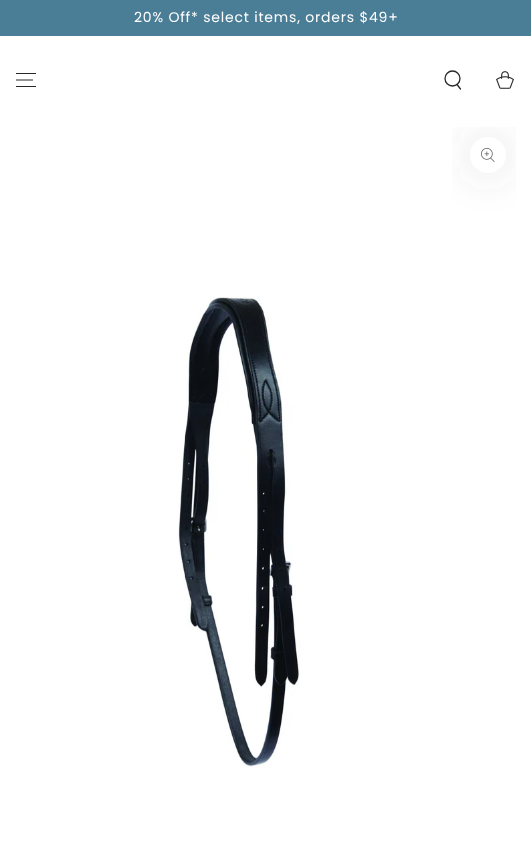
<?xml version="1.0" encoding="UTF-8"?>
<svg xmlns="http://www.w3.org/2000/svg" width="531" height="855">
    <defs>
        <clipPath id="clip1"><rect x="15" y="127" width="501" height="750"/></clipPath>
        <filter id="blur1" x="-50%" y="-200%" width="200%" height="500%"><feGaussianBlur stdDeviation="20"/></filter>
    </defs>
    <rect width="100%" height="100%" fill="#FFFFFF"/>
    <rect x="0" y="0" width="531" height="36" fill="#4A7D96"/>
    <text x="134" y="22" font-family="Poppins" font-size="14" letter-spacing="0.8" fill="#FFFFFF">20% Off* select items, orders $49+</text>
    <path d="M 16 86.5 H 36 M 16 80 H 33 M 16 73.5 H 36" fill="none" stroke="#282828" stroke-width="1.1"/>
    <g clip-path="url(#clip1)">
        <rect x="470" y="137" width="36" height="36" rx="18" fill="#5B5C5C" fill-opacity="0.2" filter="url(#blur1)"/>
    </g>
    <circle cx="452.5" cy="78.5" r="7.5" fill="none" stroke="#282828" stroke-width="1.3"/>
    <path d="M 457 84.5 L 460.5 89" fill="none" stroke="#282828" stroke-width="1.3" stroke-linecap="round"/>
    <image x="496" y="71" width="18" height="18" href="img_01.png"/>
    <circle cx="488" cy="155" r="18" fill="#FFFFFF"/>
    <image x="481" y="148" width="14" height="14" href="img_02.png"/>
    <image x="178" y="297" width="123" height="471" href="img_03.png"/>
</svg>
